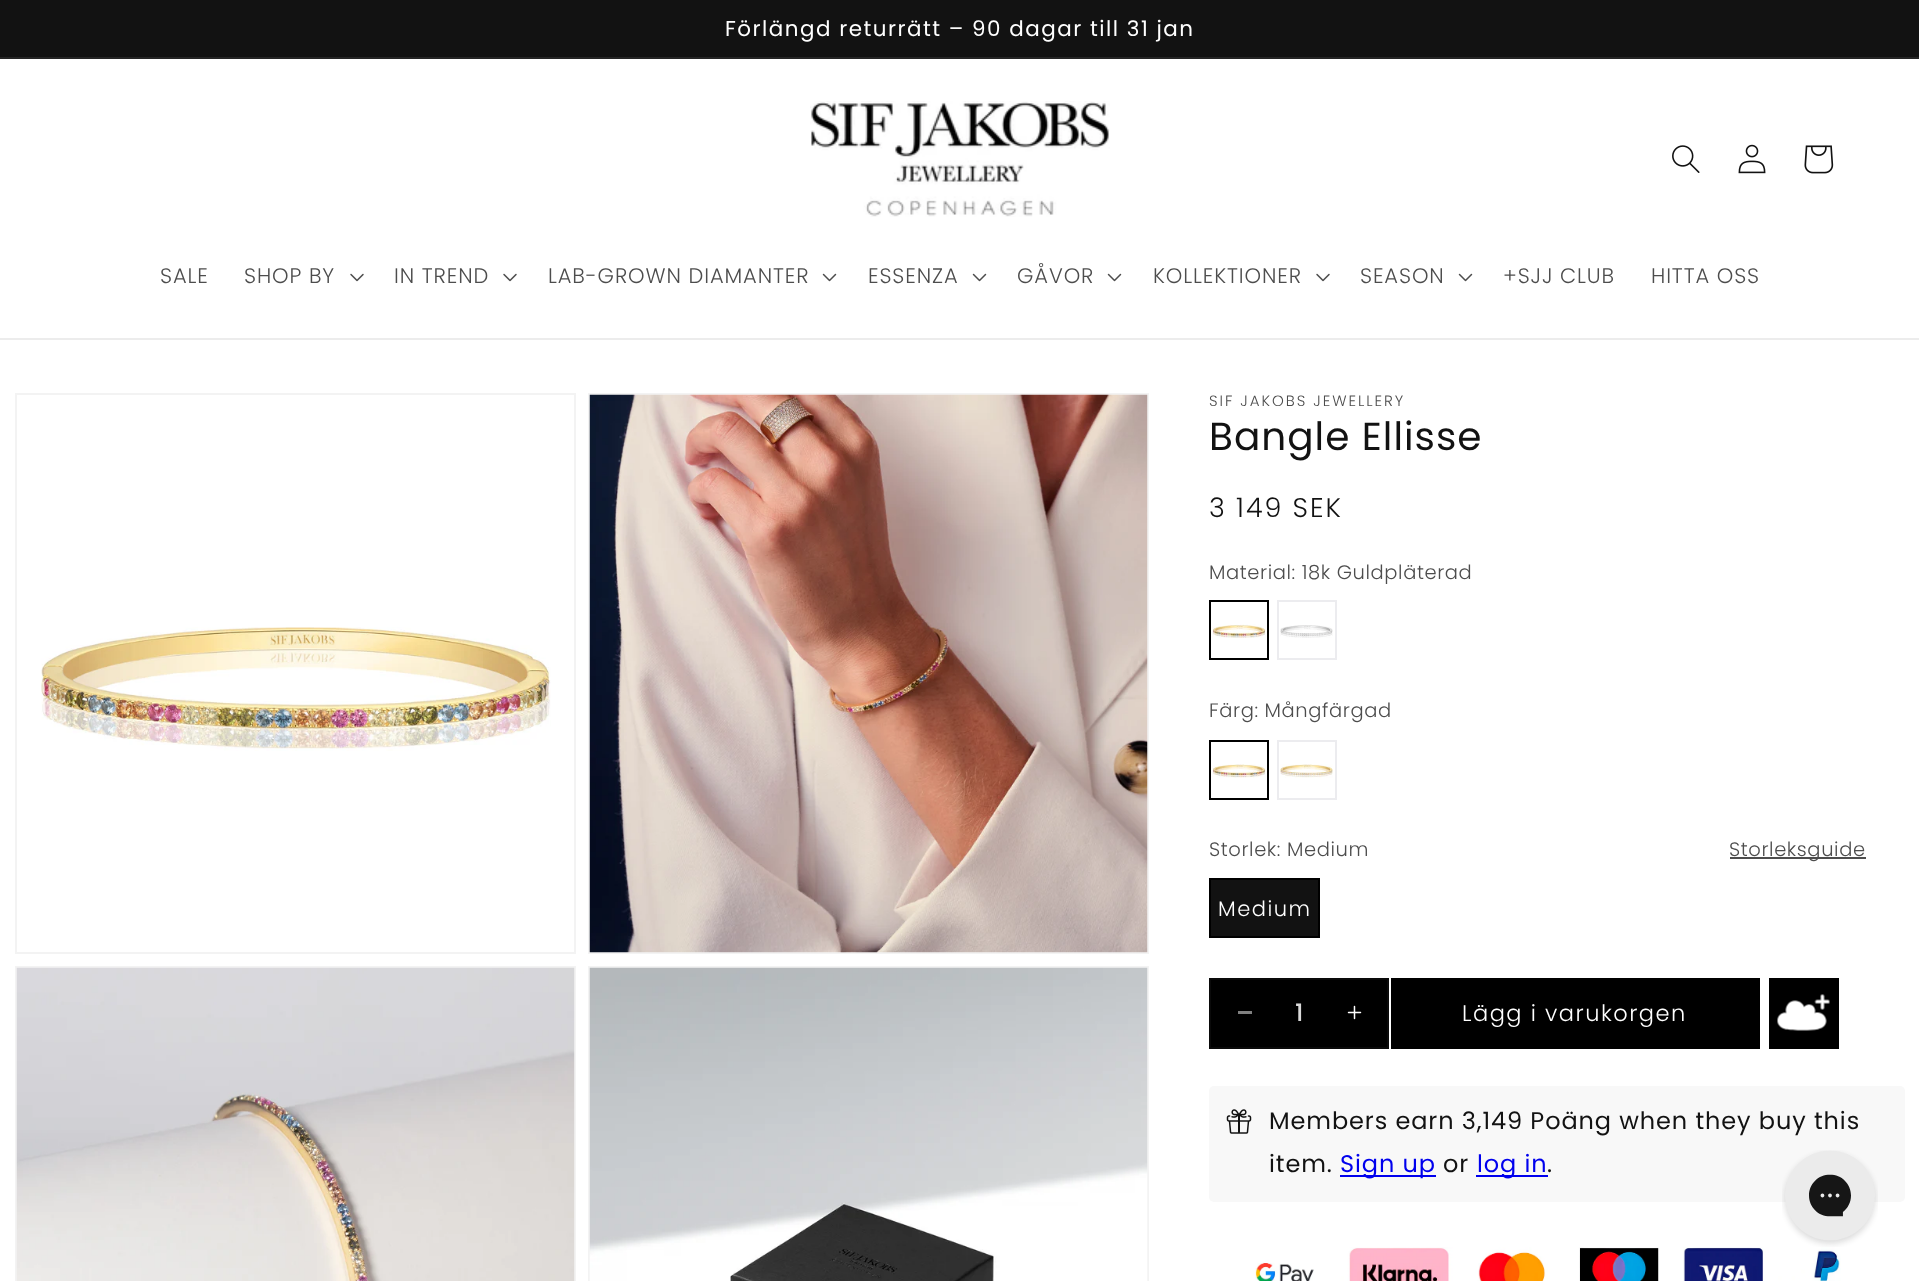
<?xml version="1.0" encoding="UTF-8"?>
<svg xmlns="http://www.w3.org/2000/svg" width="1919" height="1281">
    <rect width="100%" height="100%" fill="#FFFFFF"/>
    <rect x="0" y="0" width="1919" height="57" fill="#121212"/>
    <rect x="0" y="57" width="1919" height="2" fill="#252525"/>
    <text x="725" y="36" font-family="Poppins" font-size="21.45" letter-spacing="1.5" fill="#FFFFFF">Förlängd returrätt – 90 dagar till 31 jan</text>
    <rect x="0" y="338" width="1919" height="2" fill="#ECECEC"/>
    <image x="810" y="101" width="300" height="116" href="img_01.png"/>
    <image x="1672" y="145" width="28" height="28" href="img_02.png"/>
    <image x="1738" y="144" width="28" height="30" href="img_03.png"/>
    <image x="1804" y="145" width="30" height="29" href="img_04.png"/>
    <text x="160" y="283" font-family="Poppins" font-size="21" font-weight="300" letter-spacing="0.9" fill="#4D4D4D">SALE</text>
    <text x="244" y="283" font-family="Poppins" font-size="21" font-weight="300" letter-spacing="0.9" fill="#4D4D4D">SHOP BY</text>
    <image x="350" y="273" width="14" height="9" href="img_05.png"/>
    <text x="394" y="283" font-family="Poppins" font-size="21" font-weight="300" letter-spacing="0.9" fill="#4D4D4D">IN TREND</text>
    <image x="503" y="273" width="14" height="9" href="img_05.png"/>
    <text x="548" y="283" font-family="Poppins" font-size="21" font-weight="300" letter-spacing="0.9" fill="#4D4D4D">LAB-GROWN DIAMANTER</text>
    <image x="822" y="273" width="15" height="9" href="img_06.png"/>
    <text x="868" y="283" font-family="Poppins" font-size="21" font-weight="300" letter-spacing="0.9" fill="#4D4D4D">ESSENZA</text>
    <image x="972" y="273" width="15" height="9" href="img_06.png"/>
    <text x="1017" y="283" font-family="Poppins" font-size="21" font-weight="300" letter-spacing="0.9" fill="#4D4D4D">GÅVOR</text>
    <image x="1107" y="273" width="15" height="9" href="img_06.png"/>
    <text x="1153" y="283" font-family="Poppins" font-size="21" font-weight="300" letter-spacing="0.9" fill="#4D4D4D">KOLLEKTIONER</text>
    <image x="1316" y="273" width="14" height="9" href="img_05.png"/>
    <text x="1360" y="283" font-family="Poppins" font-size="21" font-weight="300" letter-spacing="0.9" fill="#4D4D4D">SEASON</text>
    <image x="1458" y="273" width="15" height="9" href="img_06.png"/>
    <text x="1503" y="283" font-family="Poppins" font-size="21" font-weight="300" letter-spacing="0.9" fill="#4D4D4D">+SJJ CLUB</text>
    <text x="1651" y="283" font-family="Poppins" font-size="21" font-weight="300" letter-spacing="0.9" fill="#4D4D4D">HITTA OSS</text>
    <rect x="16" y="394" width="559" height="559" fill="none" stroke="#F3F3F3" stroke-width="2"/>
    <image x="41" y="627" width="510" height="124" href="img_07.png"/>
    <rect x="589" y="394" width="559" height="559" fill="none" stroke="#F3F3F3" stroke-width="2"/>
    <image x="589" y="394" width="559" height="559" href="img_08.png"/>
    <rect x="16" y="967" width="559" height="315" fill="none" stroke="#F3F3F3" stroke-width="2"/>
    <image x="16" y="967" width="559" height="314" href="img_09.png"/>
    <rect x="589" y="967" width="559" height="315" fill="none" stroke="#F3F3F3" stroke-width="2"/>
    <image x="589" y="967" width="559" height="314" href="img_10.png"/>
    <text x="1209" y="406" font-family="Poppins" font-size="15" font-weight="300" letter-spacing="1.95" fill="#4D4D4D">SIF JAKOBS JEWELLERY</text>
    <text x="1209" y="450" font-family="Poppins" font-size="39" letter-spacing="1" fill="#121212">Bangle Ellisse</text>
    <text x="1209" y="517" font-family="Poppins" font-size="27" font-weight="300" letter-spacing="1.95" fill="#121212">3 149 SEK</text>
    <text x="1209" y="579" font-family="Poppins" font-size="19.5" font-weight="300" letter-spacing="0.6" fill="#4D4D4D">Material: 18k Guldpläterad</text>
    <image x="1212" y="624" width="54" height="14" href="img_11.png"/>
    <rect x="1210" y="601" width="58" height="58" fill="none" stroke="#000000" stroke-width="2"/>
    <image x="1280" y="625" width="53" height="13" href="img_12.png"/>
    <rect x="1278" y="601" width="58" height="58" fill="none" stroke="#ECECEF" stroke-width="2"/>
    <text x="1209" y="717" font-family="Poppins" font-size="19.5" font-weight="300" letter-spacing="0.6" fill="#4D4D4D">Färg: Mångfärgad</text>
    <image x="1212" y="764" width="54" height="14" href="img_13.png"/>
    <rect x="1210" y="741" width="58" height="58" fill="none" stroke="#000000" stroke-width="2"/>
    <image x="1280" y="764" width="53" height="14" href="img_14.png"/>
    <rect x="1278" y="741" width="58" height="58" fill="none" stroke="#ECECEF" stroke-width="2"/>
    <text x="1209" y="856" font-family="Poppins" font-size="19.5" font-weight="300" letter-spacing="0.6" fill="#4D4D4D">Storlek: Medium</text>
    <rect x="1730" y="857" width="136" height="2" fill="#4D4D4D"/>
    <text x="1729" y="856" font-family="Poppins" font-size="19.5" font-weight="300" letter-spacing="0.6" fill="#4D4D4D">Storleksguide</text>
    <rect x="1210" y="879" width="109" height="58" fill="#121212" stroke="#000000" stroke-width="2"/>
    <text x="1218" y="916" font-family="Poppins" font-size="21" font-weight="300" letter-spacing="1.5" fill="#FFFFFF">Medium</text>
    <rect x="1211" y="980" width="176" height="67" fill="#000000"/>
    <rect x="1238" y="1011" width="14" height="3" fill="#808080"/>
    <image x="1347" y="1005" width="15" height="15" href="img_15.png"/>
    <rect x="1210" y="979" width="178" height="69" fill="none" stroke="#0A0A0A" stroke-width="2"/>
    <text x="1295" y="1021" font-family="Poppins" font-size="24" font-weight="500" fill="#D9D9D9">1</text>
    <rect x="1391" y="978" width="369" height="71" fill="#000000"/>
    <text x="1462" y="1021" font-family="Poppins" font-size="22.5" font-weight="300" letter-spacing="1.5" fill="#FFFFFF">Lägg i varukorgen</text>
    <rect x="1769" y="978" width="70" height="71" fill="#000000"/>
    <image x="1777" y="994" width="53" height="37" href="img_16.png"/>
    <rect x="1209" y="1086" width="696" height="116" rx="5" fill="#F8F8F8"/>
    <image x="1226" y="1109" width="26" height="25" href="img_17.png"/>
    <text font-family="Poppins" font-size="24" letter-spacing="0.9" fill="#121212">
        <tspan x="1269" y="1129">Members earn 3,149 Poäng when they buy this</tspan>
        <tspan x="1269" y="1172">item.</tspan>
    </text>
    <rect x="1340" y="1175" width="96" height="2" fill="#0000EE"/>
    <text x="1340" y="1172" font-family="Poppins" font-size="24" letter-spacing="0.9" fill="#0000EE">Sign up</text>
    <text x="1443" y="1172" font-family="Poppins" font-size="24" letter-spacing="0.9" fill="#121212">or</text>
    <rect x="1476" y="1175" width="72" height="2" fill="#0000EE"/>
    <text x="1477" y="1172" font-family="Poppins" font-size="24" letter-spacing="0.9" fill="#0000EE">log in</text>
    <text x="1547" y="1172" font-family="Poppins" font-size="24" letter-spacing="0.9" fill="#121212">.</text>
    <image x="1255" y="1247" width="586" height="34" href="img_18.png"/>
    <image x="1782" y="1150" width="96" height="97" href="img_19.png"/>
</svg>
